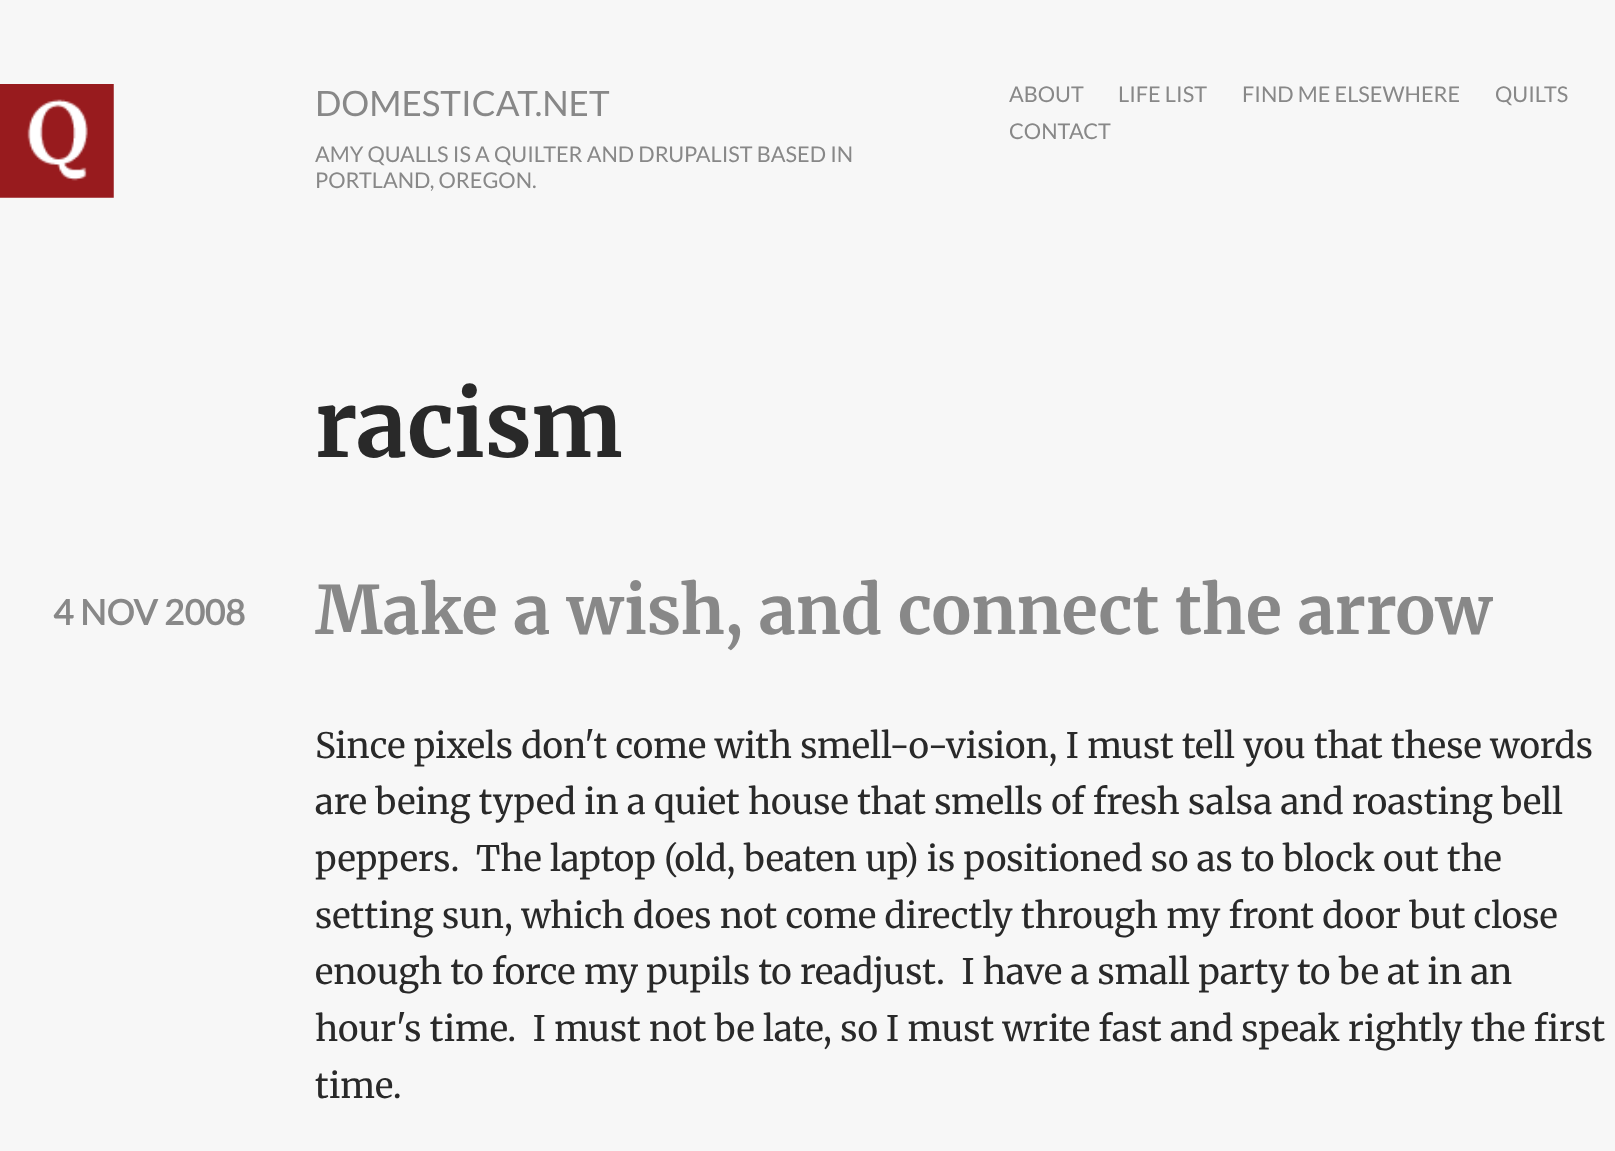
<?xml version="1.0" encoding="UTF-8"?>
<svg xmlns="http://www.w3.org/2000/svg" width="1615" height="1151">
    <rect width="100%" height="100%" fill="#F7F7F7"/>
    <image x="0" y="84" width="114" height="114" href="img_01.png"/>
    <text x="315" y="116" font-family="Lato" font-size="35" fill="#888888">DOMESTICAT.NET</text>
    <text font-family="Lato" font-size="21.7" fill="#888888">
        <tspan x="315" y="162">AMY QUALLS IS A QUILTER AND DRUPALIST BASED IN</tspan>
        <tspan x="315" y="188">PORTLAND, OREGON.</tspan>
    </text>
    <text x="1009" y="102" font-family="Lato" font-size="21.7" fill="#888888">ABOUT</text>
    <text x="1118" y="102" font-family="Lato" font-size="21.7" fill="#888888">LIFE LIST</text>
    <text x="1242" y="102" font-family="Lato" font-size="21.7" fill="#888888">FIND ME ELSEWHERE</text>
    <text x="1495" y="102" font-family="Lato" font-size="21.7" fill="#888888">QUILTS</text>
    <text x="1009" y="139" font-family="Lato" font-size="21.7" fill="#888888">CONTACT</text>
    <text x="315" y="457" font-family="Merriweather" font-size="91" font-weight="700" fill="#292929">racism</text>
    <text x="53" y="625" font-family="Lato" font-size="35" font-weight="700" fill="#888888">4 NOV 2008</text>
    <text x="315" y="634" font-family="Merriweather" font-size="66.5" font-weight="700" fill="#888888">Make a wish, and connect the arrow</text>
    <text font-family="Merriweather" font-size="35" fill="#292929" xml:space="preserve"><tspan x="315" y="758">Since pixels don't come with smell-o-vision, I must tell you that these words</tspan><tspan x="315" y="814">are being typed in a quiet house that smells of fresh salsa and roasting bell</tspan><tspan x="315" y="871">peppers.  The laptop (old, beaten up) is positioned so as to block out the</tspan><tspan x="315" y="928">setting sun, which does not come directly through my front door but close</tspan><tspan x="315" y="984">enough to force my pupils to readjust.  I have a small party to be at in an</tspan><tspan x="315" y="1041">hour's time.  I must not be late, so I must write fast and speak rightly the first</tspan><tspan x="315" y="1098">time.</tspan></text>
</svg>
